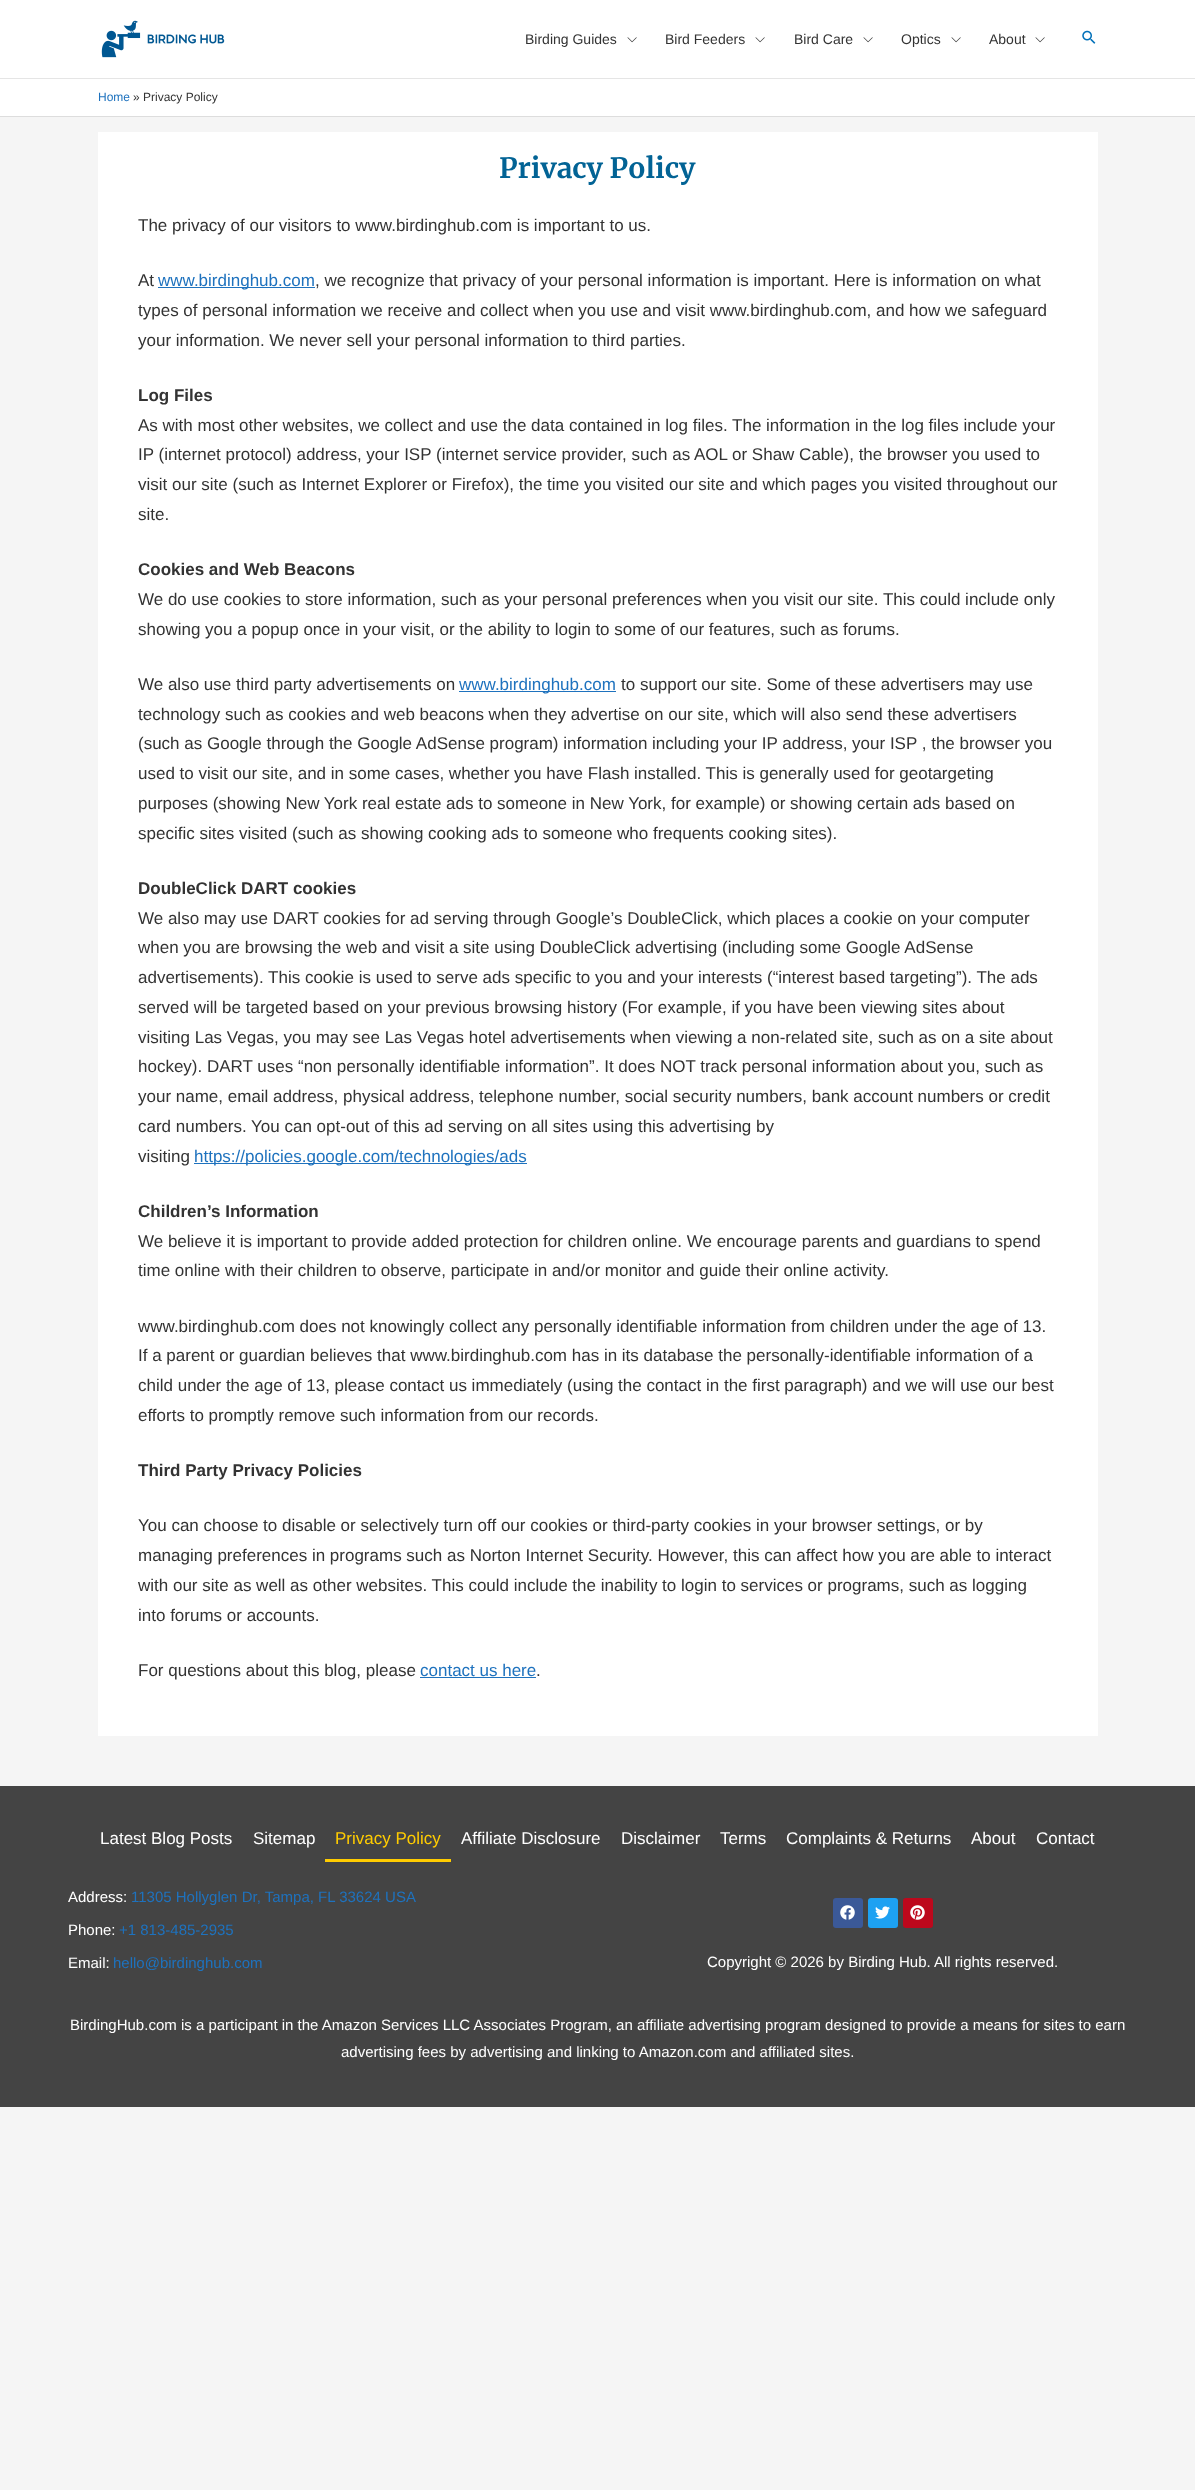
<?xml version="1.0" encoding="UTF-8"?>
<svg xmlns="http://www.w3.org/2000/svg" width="1195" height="2490">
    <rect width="100%" height="100%" fill="#F5F5F5"/>
    <rect x="0" y="0" width="1195" height="78" fill="#FFFFFF"/>
    <rect x="0" y="78" width="1195" height="1" fill="#E5E5E5"/>
    <image x="101" y="20" width="124" height="38" href="img_01.png"/>
    <text x="525" y="44" font-family="Liberation Sans" font-size="14" fill="#333333">Birding Guides</text>
    <image x="627" y="37" width="10" height="6" href="img_02.png"/>
    <text x="665" y="44" font-family="Liberation Sans" font-size="14" fill="#333333">Bird Feeders</text>
    <image x="755" y="37" width="10" height="6" href="img_02.png"/>
    <text x="794" y="44" font-family="Liberation Sans" font-size="14" fill="#333333">Bird Care</text>
    <image x="863" y="37" width="10" height="6" href="img_02.png"/>
    <text x="901" y="44" font-family="Liberation Sans" font-size="14" fill="#333333">Optics</text>
    <image x="951" y="37" width="10" height="6" href="img_02.png"/>
    <text x="989" y="44" font-family="Liberation Sans" font-size="14" fill="#333333">About</text>
    <image x="1035" y="37" width="10" height="6" href="img_02.png"/>
    <image x="1082" y="30" width="14" height="14" href="img_03.png"/>
    <rect x="0" y="79" width="1195" height="37" fill="#FFFFFF"/>
    <rect x="0" y="116" width="1195" height="1" fill="#DDDDDD"/>
    <text x="98" y="101" font-family="Liberation Sans" font-size="12" fill="#1E72BE">Home</text>
    <text x="133" y="101" font-family="Liberation Sans" font-size="12" fill="#333333">» Privacy Policy</text>
    <rect x="98" y="132" width="1000" height="1604" fill="#FFFFFF"/>
    <text x="499" y="178" font-family="Merriweather" font-size="28" font-weight="700" fill="#026395">Privacy Policy</text>
    <text x="138" y="231" font-family="Liberation Sans" font-size="17" fill="#333333">The privacy of our visitors to www.birdinghub.com is important to us.</text>
    <text x="138" y="286" font-family="Liberation Sans" font-size="17" fill="#333333">At</text>
    <rect x="158" y="287" width="157" height="1" fill="#1E72BE"/>
    <text x="158" y="286" font-family="Liberation Sans" font-size="17" fill="#1E72BE">www.birdinghub.com</text>
    <text x="315" y="286" font-family="Liberation Sans" font-size="17" fill="#333333">, we recognize that privacy of your personal information is important. Here is information on what</text>
    <text font-family="Liberation Sans" font-size="17" fill="#333333">
        <tspan x="138" y="316">types of personal information we receive and collect when you use and visit www.birdinghub.com, and how we safeguard</tspan>
        <tspan x="138" y="346">your information. We never sell your personal information to third parties.</tspan>
    </text>
    <text x="138" y="401" font-family="Liberation Sans" font-size="17" font-weight="700" fill="#333333">Log Files</text>
    <text font-family="Liberation Sans" font-size="17" fill="#333333">
        <tspan x="138" y="431">As with most other websites, we collect and use the data contained in log files. The information in the log files include your</tspan>
        <tspan x="138" y="460">IP (internet protocol) address, your ISP (internet service provider, such as AOL or Shaw Cable), the browser you used to</tspan>
        <tspan x="138" y="490">visit our site (such as Internet Explorer or Firefox), the time you visited our site and which pages you visited throughout our</tspan>
        <tspan x="138" y="520">site.</tspan>
    </text>
    <text x="138" y="575" font-family="Liberation Sans" font-size="17" font-weight="700" fill="#333333">Cookies and Web Beacons</text>
    <text font-family="Liberation Sans" font-size="17" fill="#333333">
        <tspan x="138" y="605">We do use cookies to store information, such as your personal preferences when you visit our site. This could include only</tspan>
        <tspan x="138" y="635">showing you a popup once in your visit, or the ability to login to some of our features, such as forums.</tspan>
    </text>
    <text x="138" y="690" font-family="Liberation Sans" font-size="17" fill="#333333">We also use third party advertisements on</text>
    <rect x="459" y="691" width="157" height="1" fill="#1E72BE"/>
    <text x="459" y="690" font-family="Liberation Sans" font-size="17" fill="#1E72BE">www.birdinghub.com</text>
    <text x="621" y="690" font-family="Liberation Sans" font-size="17" fill="#333333">to support our site. Some of these advertisers may use</text>
    <text font-family="Liberation Sans" font-size="17" fill="#333333">
        <tspan x="138" y="720">technology such as cookies and web beacons when they advertise on our site, which will also send these advertisers</tspan>
        <tspan x="138" y="749">(such as Google through the Google AdSense program) information including your IP address, your ISP , the browser you</tspan>
        <tspan x="138" y="779">used to visit our site, and in some cases, whether you have Flash installed. This is generally used for geotargeting</tspan>
        <tspan x="138" y="809">purposes (showing New York real estate ads to someone in New York, for example) or showing certain ads based on</tspan>
        <tspan x="138" y="839">specific sites visited (such as showing cooking ads to someone who frequents cooking sites).</tspan>
    </text>
    <text x="138" y="894" font-family="Liberation Sans" font-size="17" font-weight="700" fill="#333333">DoubleClick DART cookies</text>
    <text font-family="Liberation Sans" font-size="17" fill="#333333">
        <tspan x="138" y="924">We also may use DART cookies for ad serving through Google’s DoubleClick, which places a cookie on your computer</tspan>
        <tspan x="138" y="953">when you are browsing the web and visit a site using DoubleClick advertising (including some Google AdSense</tspan>
        <tspan x="138" y="983">advertisements). This cookie is used to serve ads specific to you and your interests (“interest based targeting”). The ads</tspan>
        <tspan x="138" y="1013">served will be targeted based on your previous browsing history (For example, if you have been viewing sites about</tspan>
        <tspan x="138" y="1043">visiting Las Vegas, you may see Las Vegas hotel advertisements when viewing a non-related site, such as on a site about</tspan>
        <tspan x="138" y="1072">hockey). DART uses “non personally identifiable information”. It does NOT track personal information about you, such as</tspan>
        <tspan x="138" y="1102">your name, email address, physical address, telephone number, social security numbers, bank account numbers or credit</tspan>
        <tspan x="138" y="1132">card numbers. You can opt-out of this ad serving on all sites using this advertising by</tspan>
        <tspan x="138" y="1162">visiting</tspan>
    </text>
    <rect x="194" y="1163" width="333" height="1" fill="#1E72BE"/>
    <text x="194" y="1162" font-family="Liberation Sans" font-size="17" fill="#1E72BE">https://policies.google.com/technologies/ads</text>
    <text x="138" y="1217" font-family="Liberation Sans" font-size="17" font-weight="700" fill="#333333">Children’s Information</text>
    <text font-family="Liberation Sans" font-size="17" fill="#333333">
        <tspan x="138" y="1247">We believe it is important to provide added protection for children online. We encourage parents and guardians to spend</tspan>
        <tspan x="138" y="1276">time online with their children to observe, participate in and/or monitor and guide their online activity.</tspan>
    </text>
    <text font-family="Liberation Sans" font-size="17" fill="#333333">
        <tspan x="138" y="1332">www.birdinghub.com does not knowingly collect any personally identifiable information from children under the age of 13.</tspan>
        <tspan x="138" y="1361">If a parent or guardian believes that www.birdinghub.com has in its database the personally-identifiable information of a</tspan>
        <tspan x="138" y="1391">child under the age of 13, please contact us immediately (using the contact in the first paragraph) and we will use our best</tspan>
        <tspan x="138" y="1421">efforts to promptly remove such information from our records.</tspan>
    </text>
    <text x="138" y="1476" font-family="Liberation Sans" font-size="17" font-weight="700" fill="#333333">Third Party Privacy Policies</text>
    <text font-family="Liberation Sans" font-size="17" fill="#333333">
        <tspan x="138" y="1531">You can choose to disable or selectively turn off our cookies or third-party cookies in your browser settings, or by</tspan>
        <tspan x="138" y="1561">managing preferences in programs such as Norton Internet Security. However, this can affect how you are able to interact</tspan>
        <tspan x="138" y="1591">with our site as well as other websites. This could include the inability to login to services or programs, such as logging</tspan>
        <tspan x="138" y="1621">into forums or accounts.</tspan>
    </text>
    <text x="138" y="1676" font-family="Liberation Sans" font-size="17" fill="#333333">For questions about this blog, please</text>
    <text x="420" y="1676" font-family="Liberation Sans" font-size="17" fill="#1E72BE">contact us here</text>
    <rect x="420" y="1677" width="116" height="1" fill="#1E72BE"/>
    <text x="536" y="1676" font-family="Liberation Sans" font-size="17" fill="#333333">.</text>
    <rect x="0" y="1786" width="1195" height="321" fill="#444444"/>
    <text x="100" y="1844" font-family="Liberation Sans" font-size="17" fill="#FFFFFF">Latest Blog Posts</text>
    <text x="253" y="1844" font-family="Liberation Sans" font-size="17" fill="#FFFFFF">Sitemap</text>
    <text x="335" y="1844" font-family="Liberation Sans" font-size="17" fill="#FFCC00">Privacy Policy</text>
    <rect x="325" y="1859" width="126" height="3" fill="#FFCC00"/>
    <text x="461" y="1844" font-family="Liberation Sans" font-size="17" fill="#FFFFFF">Affiliate Disclosure</text>
    <text x="621" y="1844" font-family="Liberation Sans" font-size="17" fill="#FFFFFF">Disclaimer</text>
    <text x="720" y="1844" font-family="Liberation Sans" font-size="17" fill="#FFFFFF">Terms</text>
    <text x="786" y="1844" font-family="Liberation Sans" font-size="17" fill="#FFFFFF">Complaints &amp; Returns</text>
    <text x="971" y="1844" font-family="Liberation Sans" font-size="17" fill="#FFFFFF">About</text>
    <text x="1036" y="1844" font-family="Liberation Sans" font-size="17" fill="#FFFFFF">Contact</text>
    <text x="68" y="1902" font-family="Liberation Sans" font-size="15" fill="#FFFFFF">Address:</text>
    <text x="131" y="1902" font-family="Liberation Sans" font-size="15" fill="#1E72BE">11305 Hollyglen Dr, Tampa, FL 33624 USA</text>
    <text x="68" y="1935" font-family="Liberation Sans" font-size="15" fill="#FFFFFF">Phone:</text>
    <text x="119" y="1935" font-family="Liberation Sans" font-size="15" fill="#1E72BE">+1 813-485-2935</text>
    <text x="68" y="1968" font-family="Liberation Sans" font-size="15" fill="#FFFFFF">Email:</text>
    <text x="113" y="1968" font-family="Liberation Sans" font-size="15" fill="#1E72BE">hello@birdinghub.com</text>
    <rect x="833" y="1898" width="30" height="30" rx="3" fill="#3B5998"/>
    <image x="840" y="1905" width="15" height="15" href="img_04.png"/>
    <rect x="868" y="1898" width="30" height="30" rx="3" fill="#1DA1F2"/>
    <image x="875" y="1906" width="15" height="13" href="img_05.png"/>
    <rect x="903" y="1898" width="30" height="30" rx="3" fill="#BD081C"/>
    <image x="910" y="1905" width="15" height="15" href="img_06.png"/>
    <text x="707" y="1967" font-family="Liberation Sans" font-size="15" fill="#FFFFFF">Copyright © 2026 by Birding Hub. All rights reserved.</text>
    <text x="70" y="2030" font-family="Liberation Sans" font-size="15" fill="#FFFFFF">BirdingHub.com is a participant in the Amazon Services LLC Associates Program, an affiliate advertising program designed to provide a means for sites to earn</text>
    <text x="341" y="2057" font-family="Liberation Sans" font-size="15" fill="#FFFFFF">advertising fees by advertising and linking to Amazon.com and affiliated sites.</text>
</svg>
